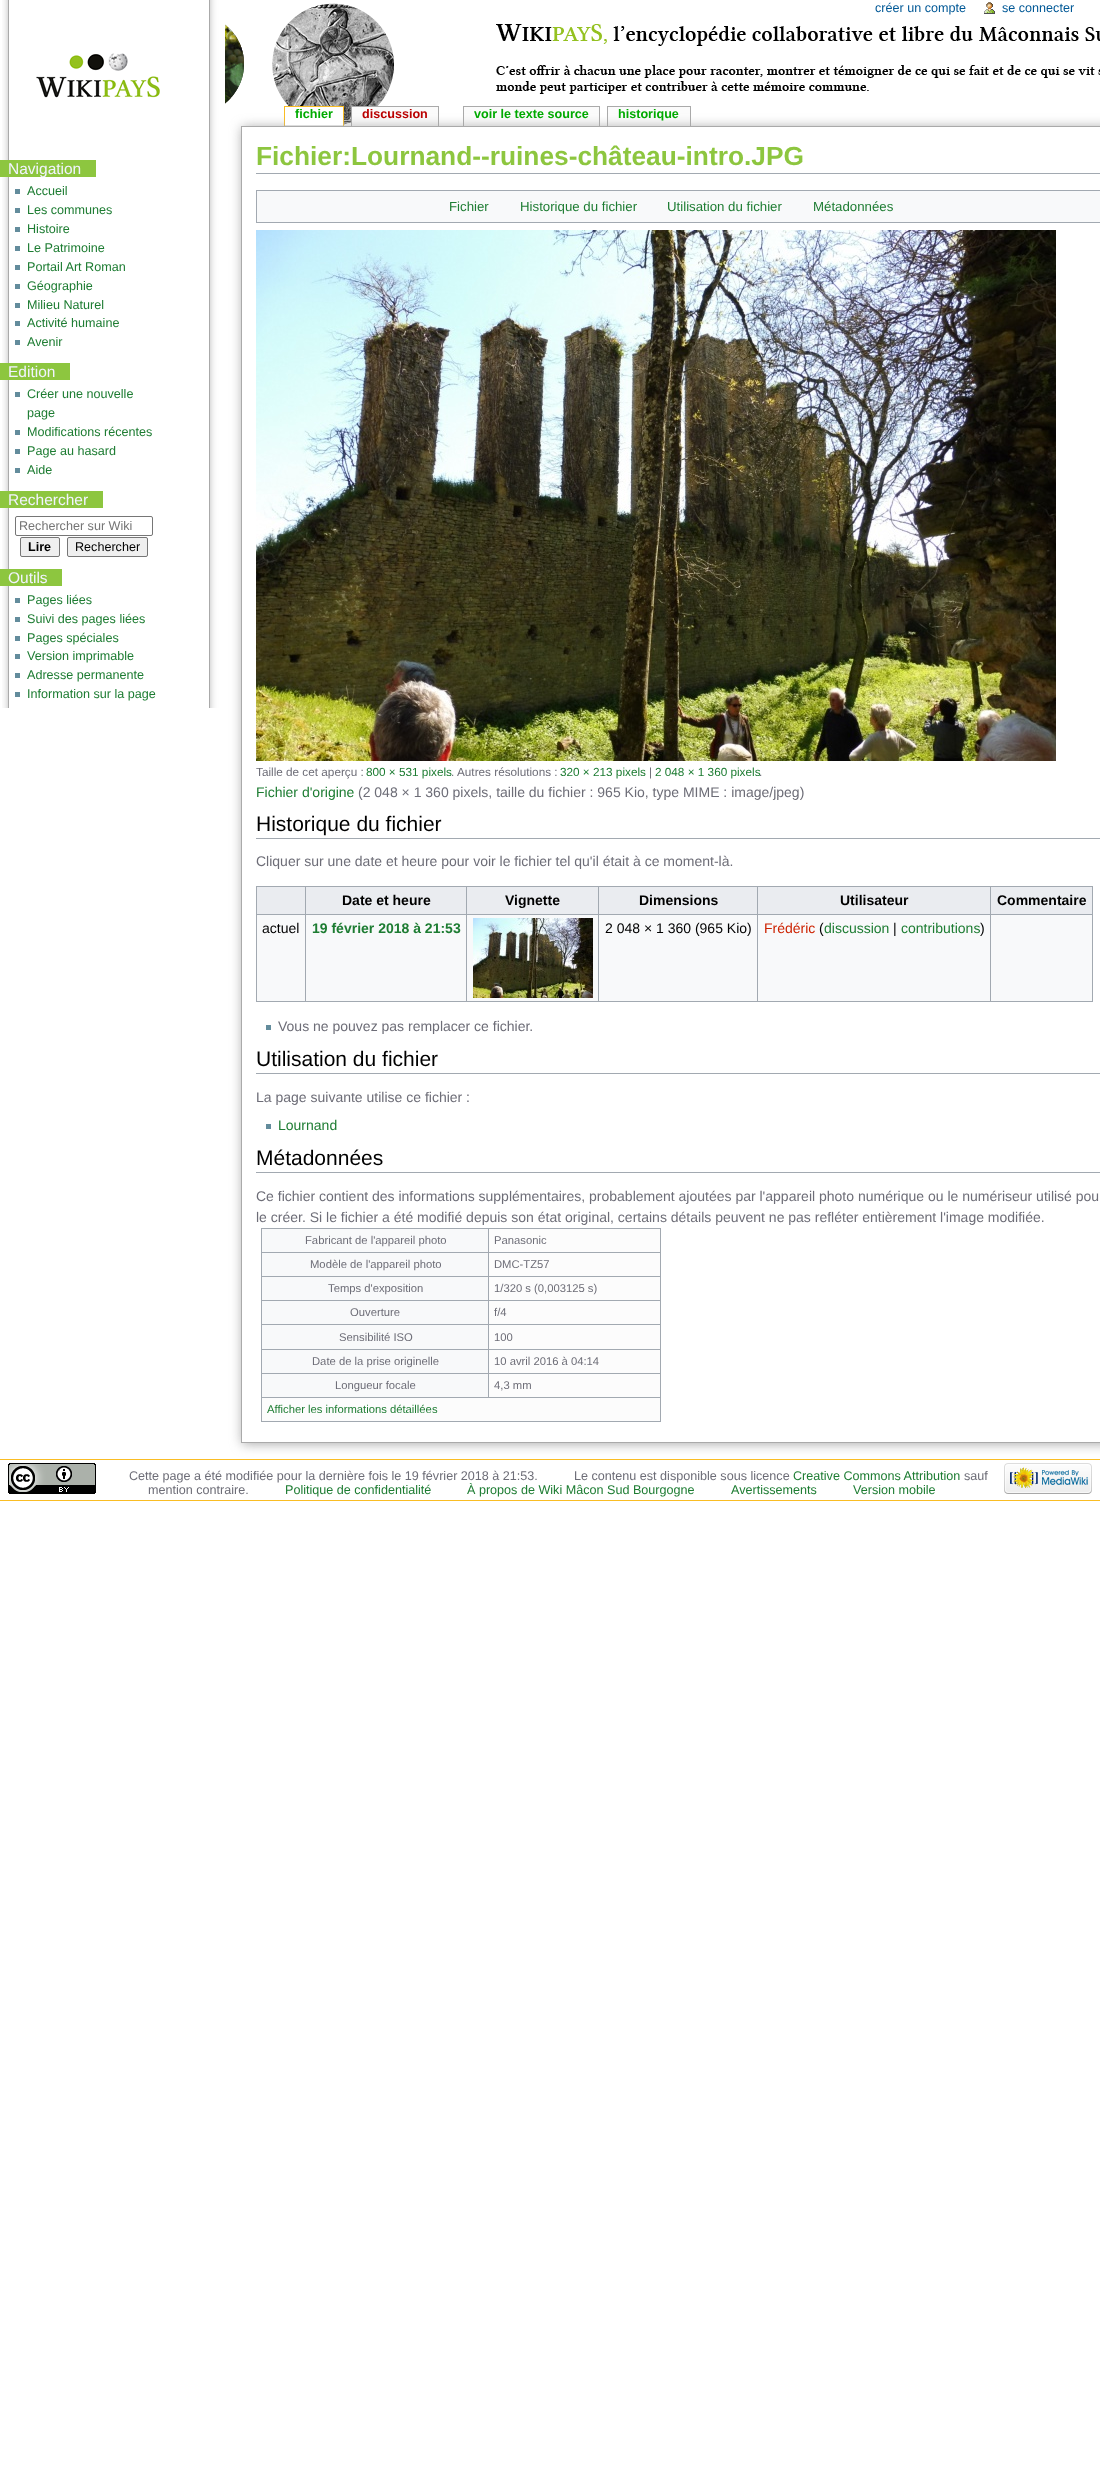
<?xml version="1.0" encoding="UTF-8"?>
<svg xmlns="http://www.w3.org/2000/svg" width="1100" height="2472">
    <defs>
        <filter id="blur1" x="-50%" y="-200%" width="200%" height="500%"><feGaussianBlur stdDeviation="6"/></filter>
    </defs>
    <rect width="100%" height="100%" fill="#FFFFFF"/>
    <image x="225" y="3" width="875" height="122" href="img_01.png"/>
    <image x="2" y="0" width="223" height="708" href="img_02.png"/>
    <text x="875" y="12" font-family="Liberation Sans" font-size="12.6" fill="#005896">créer un compte</text>
    <image x="984" y="2" width="11" height="12" href="img_03.png"/>
    <text x="1002" y="12" font-family="Liberation Sans" font-size="12.6" fill="#005896">se connecter</text>
    <image x="36" y="53" width="124" height="45" href="img_04.png"/>
    <rect x="284" y="106" width="60" height="1" fill="#FABD23"/>
    <rect x="343" y="106" width="1" height="28" fill="#FABD23"/>
    <rect x="284" y="106" width="1" height="28" fill="#FABD23"/>
    <rect x="351" y="106" width="88" height="1" fill="#AAAAAA"/>
    <rect x="438" y="106" width="1" height="28" fill="#AAAAAA"/>
    <rect x="351" y="106" width="1" height="28" fill="#AAAAAA"/>
    <rect x="352" y="107" width="86" height="18" fill="#FBFBFB"/>
    <rect x="463" y="106" width="137" height="1" fill="#AAAAAA"/>
    <rect x="599" y="106" width="1" height="28" fill="#AAAAAA"/>
    <rect x="463" y="106" width="1" height="28" fill="#AAAAAA"/>
    <rect x="464" y="107" width="135" height="18" fill="#FBFBFB"/>
    <rect x="607" y="106" width="84" height="1" fill="#AAAAAA"/>
    <rect x="690" y="106" width="1" height="28" fill="#AAAAAA"/>
    <rect x="607" y="106" width="1" height="28" fill="#AAAAAA"/>
    <rect x="608" y="107" width="82" height="18" fill="#FBFBFB"/>
    <rect x="0" y="1459" width="1100" height="1" fill="#FABD23"/>
    <rect x="242" y="127" width="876" height="1317" fill="#A9A9A9" filter="url(#blur1)"/>
    <rect x="285" y="107" width="58" height="18" fill="#FFFFFF"/>
    <text x="295" y="118" font-family="Liberation Sans" font-size="12.6" font-weight="700" fill="#00AA00">fichier</text>
    <text x="362" y="118" font-family="Liberation Sans" font-size="12.6" font-weight="700" fill="#BA0000">discussion</text>
    <text x="474" y="118" font-family="Liberation Sans" font-size="12.6" font-weight="700" fill="#00AA00">voir le texte source</text>
    <text x="618" y="118" font-family="Liberation Sans" font-size="12.6" font-weight="700" fill="#00AA00">historique</text>
    <rect x="0" y="160" width="96" height="17" fill="#8DC63F"/>
    <text x="8" y="174" font-family="Liberation Sans" font-size="15.5" fill="#F2F3FF">Navigation</text>
    <rect x="15" y="189" width="5" height="5" fill="#638C9C"/>
    <text x="27" y="195" font-family="Liberation Sans" font-size="12.6" fill="#1D7C32">Accueil</text>
    <rect x="15" y="208" width="5" height="5" fill="#638C9C"/>
    <text x="27" y="214" font-family="Liberation Sans" font-size="12.6" fill="#1D7C32">Les communes</text>
    <rect x="15" y="227" width="5" height="5" fill="#638C9C"/>
    <text x="27" y="233" font-family="Liberation Sans" font-size="12.6" fill="#1D7C32">Histoire</text>
    <rect x="15" y="246" width="5" height="5" fill="#638C9C"/>
    <text x="27" y="252" font-family="Liberation Sans" font-size="12.6" fill="#1D7C32">Le Patrimoine</text>
    <rect x="15" y="265" width="5" height="5" fill="#638C9C"/>
    <text x="27" y="271" font-family="Liberation Sans" font-size="12.6" fill="#1D7C32">Portail Art Roman</text>
    <rect x="15" y="284" width="5" height="5" fill="#638C9C"/>
    <text x="27" y="290" font-family="Liberation Sans" font-size="12.6" fill="#1D7C32">Géographie</text>
    <rect x="15" y="303" width="5" height="5" fill="#638C9C"/>
    <text x="27" y="309" font-family="Liberation Sans" font-size="12.6" fill="#1D7C32">Milieu Naturel</text>
    <rect x="15" y="321" width="5" height="5" fill="#638C9C"/>
    <text x="27" y="327" font-family="Liberation Sans" font-size="12.6" fill="#1D7C32">Activité humaine</text>
    <rect x="15" y="340" width="5" height="5" fill="#638C9C"/>
    <text x="27" y="346" font-family="Liberation Sans" font-size="12.6" fill="#1D7C32">Avenir</text>
    <rect x="0" y="363" width="70" height="17" fill="#8DC63F"/>
    <text x="8" y="377" font-family="Liberation Sans" font-size="15.5" fill="#F2F3FF">Edition</text>
    <rect x="15" y="392" width="5" height="5" fill="#638C9C"/>
    <text font-family="Liberation Sans" font-size="12.6" fill="#1D7C32">
        <tspan x="27" y="398">Créer une nouvelle</tspan>
        <tspan x="27" y="417">page</tspan>
    </text>
    <rect x="15" y="430" width="5" height="5" fill="#638C9C"/>
    <text x="27" y="436" font-family="Liberation Sans" font-size="12.6" fill="#1D7C32">Modifications récentes</text>
    <rect x="15" y="449" width="5" height="5" fill="#638C9C"/>
    <text x="27" y="455" font-family="Liberation Sans" font-size="12.6" fill="#1D7C32">Page au hasard</text>
    <rect x="15" y="468" width="5" height="5" fill="#638C9C"/>
    <text x="27" y="474" font-family="Liberation Sans" font-size="12.6" fill="#1D7C32">Aide</text>
    <rect x="0" y="491" width="103" height="17" fill="#8DC63F"/>
    <text x="8" y="505" font-family="Liberation Sans" font-size="15.5" fill="#F2F3FF">Rechercher</text>
    <rect x="15.5" y="516.5" width="137" height="19" rx="1.5" fill="none" stroke="#767676"/>
    <text x="19" y="530" font-family="Liberation Sans" font-size="12.6" fill="#757575">Rechercher sur Wiki</text>
    <rect x="20.5" y="537.5" width="39" height="19" rx="1.5" fill="#EFEFEF" stroke="#767676"/>
    <text x="28" y="551" font-family="Liberation Sans" font-size="12.6" font-weight="700" fill="#000000">Lire</text>
    <rect x="67.5" y="537.5" width="80" height="19" rx="1.5" fill="#EFEFEF" stroke="#767676"/>
    <text x="75" y="551" font-family="Liberation Sans" font-size="12.6" fill="#000000">Rechercher</text>
    <rect x="0" y="569" width="62" height="17" fill="#8DC63F"/>
    <text x="8" y="583" font-family="Liberation Sans" font-size="15.5" fill="#F2F3FF">Outils</text>
    <rect x="15" y="598" width="5" height="5" fill="#638C9C"/>
    <text x="27" y="604" font-family="Liberation Sans" font-size="12.6" fill="#1D7C32">Pages liées</text>
    <rect x="15" y="617" width="5" height="5" fill="#638C9C"/>
    <text x="27" y="623" font-family="Liberation Sans" font-size="12.6" fill="#1D7C32">Suivi des pages liées</text>
    <rect x="15" y="636" width="5" height="5" fill="#638C9C"/>
    <text x="27" y="642" font-family="Liberation Sans" font-size="12.6" fill="#1D7C32">Pages spéciales</text>
    <rect x="15" y="654" width="5" height="5" fill="#638C9C"/>
    <text x="27" y="660" font-family="Liberation Sans" font-size="12.6" fill="#1D7C32">Version imprimable</text>
    <rect x="15" y="673" width="5" height="5" fill="#638C9C"/>
    <text x="27" y="679" font-family="Liberation Sans" font-size="12.6" fill="#1D7C32">Adresse permanente</text>
    <rect x="15" y="692" width="5" height="5" fill="#638C9C"/>
    <text x="27" y="698" font-family="Liberation Sans" font-size="12.6" fill="#1D7C32">Information sur la page</text>
    <rect x="242" y="127" width="858" height="1315" fill="#FFFFFF"/>
    <rect x="241" y="126" width="859" height="1" fill="#AAAAAA"/>
    <rect x="241" y="1442" width="859" height="1" fill="#AAAAAA"/>
    <rect x="241" y="126" width="1" height="1317" fill="#AAAAAA"/>
    <rect x="256" y="173" width="844" height="1" fill="#A2A9B1"/>
    <text x="256" y="165" font-family="Liberation Sans" font-size="26.3" font-weight="700" fill="#8DC63F">Fichier:Lournand--ruines-château-intro.JPG</text>
    <rect x="256.5" y="190.5" width="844" height="32" fill="#F8F9FA" stroke="#A2A9B1"/>
    <text x="449" y="211" font-family="Liberation Sans" font-size="13.25" fill="#1D7C32">Fichier</text>
    <text x="520" y="211" font-family="Liberation Sans" font-size="13.25" fill="#1D7C32">Historique du fichier</text>
    <text x="667" y="211" font-family="Liberation Sans" font-size="13.25" fill="#1D7C32">Utilisation du fichier</text>
    <text x="813" y="211" font-family="Liberation Sans" font-size="13.25" fill="#1D7C32">Métadonnées</text>
    <image x="256" y="230" width="800" height="531" href="img_05.png"/>
    <text x="256" y="776" font-family="Liberation Sans" font-size="11.75" fill="#6D6D77">Taille de cet aperçu :</text>
    <text x="366" y="776" font-family="Liberation Sans" font-size="11.75" fill="#1D7C32">800 × 531 pixels</text>
    <text x="451" y="776" font-family="Liberation Sans" font-size="11.75" fill="#6D6D77">.</text>
    <text x="457" y="776" font-family="Liberation Sans" font-size="11.75" fill="#6D6D77">Autres résolutions :</text>
    <text x="560" y="776" font-family="Liberation Sans" font-size="11.75" fill="#1D7C32">320 × 213 pixels</text>
    <text x="649" y="776" font-family="Liberation Sans" font-size="11.75" fill="#6D6D77">|</text>
    <text x="655" y="776" font-family="Liberation Sans" font-size="11.75" fill="#1D7C32">2 048 × 1 360 pixels</text>
    <text x="759" y="776" font-family="Liberation Sans" font-size="11.75" fill="#6D6D77">.</text>
    <text x="256" y="797" font-family="Liberation Sans" font-size="14" fill="#1D7C32">Fichier d'origine</text>
    <text x="358" y="797" font-family="Liberation Sans" font-size="14" fill="#6D6D77">(2 048 × 1 360 pixels, taille du fichier : 965 Kio, type MIME : image/jpeg)</text>
    <rect x="256" y="838" width="844" height="1" fill="#A2A9B1"/>
    <text x="256" y="831" font-family="Liberation Sans" font-size="21" fill="#000000">Historique du fichier</text>
    <text x="256" y="866" font-family="Liberation Sans" font-size="14" fill="#6D6D77">Cliquer sur une date et heure pour voir le fichier tel qu'il était à ce moment-là.</text>
    <rect x="257" y="915" width="835" height="86" fill="#F8F9FA"/>
    <rect x="256" y="886" width="837" height="1" fill="#A2A9B1"/>
    <rect x="1092" y="886" width="1" height="116" fill="#A2A9B1"/>
    <rect x="256" y="1001" width="837" height="1" fill="#A2A9B1"/>
    <rect x="256" y="886" width="1" height="116" fill="#A2A9B1"/>
    <rect x="257" y="887" width="48" height="27" fill="#EAECF0"/>
    <rect x="306" y="887" width="160" height="27" fill="#EAECF0"/>
    <rect x="990" y="914" width="103" height="1" fill="#A2A9B1"/>
    <rect x="990" y="914" width="1" height="88" fill="#A2A9B1"/>
    <rect x="757" y="914" width="234" height="1" fill="#A2A9B1"/>
    <rect x="757" y="914" width="1" height="88" fill="#A2A9B1"/>
    <rect x="598" y="914" width="160" height="1" fill="#A2A9B1"/>
    <rect x="598" y="914" width="1" height="88" fill="#A2A9B1"/>
    <rect x="466" y="914" width="133" height="1" fill="#A2A9B1"/>
    <rect x="466" y="914" width="1" height="88" fill="#A2A9B1"/>
    <rect x="305" y="914" width="162" height="1" fill="#A2A9B1"/>
    <rect x="305" y="914" width="1" height="88" fill="#A2A9B1"/>
    <rect x="256" y="914" width="50" height="1" fill="#A2A9B1"/>
    <rect x="305" y="886" width="1" height="29" fill="#A2A9B1"/>
    <text x="342" y="905" font-family="Liberation Sans" font-size="14" font-weight="700" fill="#000000">Date et heure</text>
    <rect x="467" y="887" width="131" height="27" fill="#EAECF0"/>
    <rect x="466" y="886" width="1" height="29" fill="#A2A9B1"/>
    <text x="505" y="905" font-family="Liberation Sans" font-size="14" font-weight="700" fill="#000000">Vignette</text>
    <rect x="599" y="887" width="158" height="27" fill="#EAECF0"/>
    <rect x="598" y="886" width="1" height="29" fill="#A2A9B1"/>
    <text x="639" y="905" font-family="Liberation Sans" font-size="14" font-weight="700" fill="#000000">Dimensions</text>
    <rect x="758" y="887" width="232" height="27" fill="#EAECF0"/>
    <rect x="757" y="886" width="1" height="29" fill="#A2A9B1"/>
    <text x="840" y="905" font-family="Liberation Sans" font-size="14" font-weight="700" fill="#000000">Utilisateur</text>
    <rect x="991" y="887" width="101" height="27" fill="#EAECF0"/>
    <rect x="990" y="886" width="1" height="29" fill="#A2A9B1"/>
    <text x="997" y="905" font-family="Liberation Sans" font-size="14" font-weight="700" fill="#000000">Commentaire</text>
    <text x="262" y="933" font-family="Liberation Sans" font-size="14" fill="#000000">actuel</text>
    <text x="312" y="933" font-family="Liberation Sans" font-size="14" font-weight="700" fill="#1D7C32">19 février 2018 à 21:53</text>
    <image x="473" y="918" width="120" height="80" href="img_06.png"/>
    <text x="605" y="933" font-family="Liberation Sans" font-size="14" fill="#000000">2 048 × 1 360 (965 Kio)</text>
    <text x="764" y="933" font-family="Liberation Sans" font-size="14" fill="#CC2200">Frédéric</text>
    <text x="819" y="933" font-family="Liberation Sans" font-size="14" fill="#000000">(</text>
    <text x="824" y="933" font-family="Liberation Sans" font-size="14" fill="#1D7C32">discussion</text>
    <text x="893" y="933" font-family="Liberation Sans" font-size="14" fill="#000000">|</text>
    <text x="901" y="933" font-family="Liberation Sans" font-size="14" fill="#1D7C32">contributions</text>
    <text x="980" y="933" font-family="Liberation Sans" font-size="14" fill="#000000">)</text>
    <rect x="266" y="1025" width="5" height="5" fill="#638C9C"/>
    <text x="278" y="1031" font-family="Liberation Sans" font-size="14" fill="#6D6D77">Vous ne pouvez pas remplacer ce fichier.</text>
    <rect x="256" y="1073" width="844" height="1" fill="#A2A9B1"/>
    <text x="256" y="1066" font-family="Liberation Sans" font-size="21" fill="#000000">Utilisation du fichier</text>
    <text x="256" y="1102" font-family="Liberation Sans" font-size="14" fill="#6D6D77">La page suivante utilise ce fichier :</text>
    <rect x="266" y="1124" width="5" height="5" fill="#638C9C"/>
    <text x="278" y="1130" font-family="Liberation Sans" font-size="14" fill="#1D7C32">Lournand</text>
    <rect x="256" y="1172" width="844" height="1" fill="#A2A9B1"/>
    <text x="256" y="1165" font-family="Liberation Sans" font-size="21" fill="#000000">Métadonnées</text>
    <text font-family="Liberation Sans" font-size="14" fill="#6D6D77">
        <tspan x="256" y="1201">Ce fichier contient des informations supplémentaires, probablement ajoutées par l'appareil photo numérique ou le numériseur utilisé pou</tspan>
        <tspan x="256" y="1222">le créer. Si le fichier a été modifié depuis son état original, certains détails peuvent ne pas refléter entièrement l'image modifiée.</tspan>
    </text>
    <rect x="262" y="1229" width="226" height="23" fill="#F8F9FA"/>
    <rect x="488" y="1228" width="173" height="1" fill="#A2A9B1"/>
    <rect x="488" y="1252" width="173" height="1" fill="#A2A9B1"/>
    <rect x="488" y="1276" width="173" height="1" fill="#A2A9B1"/>
    <rect x="488" y="1300" width="173" height="1" fill="#A2A9B1"/>
    <rect x="488" y="1324" width="173" height="1" fill="#A2A9B1"/>
    <rect x="488" y="1349" width="173" height="1" fill="#A2A9B1"/>
    <rect x="488" y="1373" width="173" height="1" fill="#A2A9B1"/>
    <rect x="261" y="1397" width="400" height="1" fill="#A2A9B1"/>
    <rect x="488" y="1373" width="1" height="25" fill="#A2A9B1"/>
    <rect x="261" y="1373" width="228" height="1" fill="#A2A9B1"/>
    <rect x="488" y="1349" width="1" height="25" fill="#A2A9B1"/>
    <rect x="261" y="1349" width="228" height="1" fill="#A2A9B1"/>
    <rect x="488" y="1324" width="1" height="26" fill="#A2A9B1"/>
    <rect x="261" y="1324" width="228" height="1" fill="#A2A9B1"/>
    <rect x="488" y="1300" width="1" height="25" fill="#A2A9B1"/>
    <rect x="261" y="1300" width="228" height="1" fill="#A2A9B1"/>
    <rect x="488" y="1276" width="1" height="25" fill="#A2A9B1"/>
    <rect x="261" y="1276" width="228" height="1" fill="#A2A9B1"/>
    <rect x="488" y="1252" width="1" height="25" fill="#A2A9B1"/>
    <rect x="261" y="1252" width="228" height="1" fill="#A2A9B1"/>
    <rect x="488" y="1228" width="1" height="25" fill="#A2A9B1"/>
    <rect x="261" y="1228" width="228" height="1" fill="#A2A9B1"/>
    <rect x="660" y="1397" width="1" height="25" fill="#A2A9B1"/>
    <rect x="261" y="1421" width="400" height="1" fill="#A2A9B1"/>
    <rect x="261" y="1397" width="1" height="25" fill="#A2A9B1"/>
    <rect x="261" y="1373" width="1" height="25" fill="#A2A9B1"/>
    <rect x="261" y="1349" width="1" height="25" fill="#A2A9B1"/>
    <rect x="261" y="1324" width="1" height="26" fill="#A2A9B1"/>
    <rect x="261" y="1300" width="1" height="25" fill="#A2A9B1"/>
    <rect x="261" y="1276" width="1" height="25" fill="#A2A9B1"/>
    <rect x="261" y="1252" width="1" height="25" fill="#A2A9B1"/>
    <rect x="261" y="1228" width="1" height="25" fill="#A2A9B1"/>
    <text x="305" y="1244" font-family="Liberation Sans" font-size="11.25" fill="#6D6D77">Fabricant de l'appareil photo</text>
    <rect x="489" y="1229" width="171" height="23" fill="#FCFCFC"/>
    <rect x="660" y="1373" width="1" height="25" fill="#A2A9B1"/>
    <rect x="660" y="1349" width="1" height="25" fill="#A2A9B1"/>
    <rect x="660" y="1324" width="1" height="26" fill="#A2A9B1"/>
    <rect x="660" y="1300" width="1" height="25" fill="#A2A9B1"/>
    <rect x="660" y="1276" width="1" height="25" fill="#A2A9B1"/>
    <rect x="660" y="1252" width="1" height="25" fill="#A2A9B1"/>
    <rect x="660" y="1228" width="1" height="25" fill="#A2A9B1"/>
    <text x="494" y="1244" font-family="Liberation Sans" font-size="11.25" fill="#6D6D77">Panasonic</text>
    <rect x="262" y="1253" width="226" height="23" fill="#F8F9FA"/>
    <text x="310" y="1268" font-family="Liberation Sans" font-size="11.25" fill="#6D6D77">Modèle de l'appareil photo</text>
    <rect x="489" y="1253" width="171" height="23" fill="#FCFCFC"/>
    <text x="494" y="1268" font-family="Liberation Sans" font-size="11.25" fill="#6D6D77">DMC-TZ57</text>
    <rect x="262" y="1277" width="226" height="23" fill="#F8F9FA"/>
    <text x="328" y="1292" font-family="Liberation Sans" font-size="11.25" fill="#6D6D77">Temps d'exposition</text>
    <rect x="489" y="1277" width="171" height="23" fill="#FCFCFC"/>
    <text x="494" y="1292" font-family="Liberation Sans" font-size="11.25" fill="#6D6D77">1/320 s (0,003125 s)</text>
    <rect x="262" y="1301" width="226" height="23" fill="#F8F9FA"/>
    <text x="350" y="1316" font-family="Liberation Sans" font-size="11.25" fill="#6D6D77">Ouverture</text>
    <rect x="489" y="1301" width="171" height="23" fill="#FCFCFC"/>
    <text x="494" y="1316" font-family="Liberation Sans" font-size="11.25" fill="#6D6D77">f/4</text>
    <rect x="262" y="1325" width="226" height="24" fill="#F8F9FA"/>
    <text x="339" y="1341" font-family="Liberation Sans" font-size="11.25" fill="#6D6D77">Sensibilité ISO</text>
    <rect x="489" y="1325" width="171" height="24" fill="#FCFCFC"/>
    <text x="494" y="1341" font-family="Liberation Sans" font-size="11.25" fill="#6D6D77">100</text>
    <rect x="262" y="1350" width="226" height="23" fill="#F8F9FA"/>
    <text x="312" y="1365" font-family="Liberation Sans" font-size="11.25" fill="#6D6D77">Date de la prise originelle</text>
    <rect x="489" y="1350" width="171" height="23" fill="#FCFCFC"/>
    <text x="494" y="1365" font-family="Liberation Sans" font-size="11.25" fill="#6D6D77">10 avril 2016 à 04:14</text>
    <rect x="262" y="1374" width="226" height="23" fill="#F8F9FA"/>
    <text x="335" y="1389" font-family="Liberation Sans" font-size="11.25" fill="#6D6D77">Longueur focale</text>
    <rect x="489" y="1374" width="171" height="23" fill="#FCFCFC"/>
    <text x="494" y="1389" font-family="Liberation Sans" font-size="11.25" fill="#6D6D77">4,3 mm</text>
    <rect x="262" y="1398" width="398" height="23" fill="#FCFCFC"/>
    <text x="267" y="1413" font-family="Liberation Sans" font-size="11.25" fill="#1D7C32">Afficher les informations détaillées</text>
    <rect x="0" y="1500" width="1100" height="1" fill="#FABD23"/>
    <image x="8" y="1463" width="88" height="31" href="img_07.png"/>
    <text x="129" y="1480" font-family="Liberation Sans" font-size="12.6" fill="#6D6D77">Cette page a été modifiée pour la dernière fois le 19 février 2018 à 21:53.</text>
    <text x="574" y="1480" font-family="Liberation Sans" font-size="12.6" fill="#6D6D77">Le contenu est disponible sous licence</text>
    <text x="793" y="1480" font-family="Liberation Sans" font-size="12.6" fill="#1D7C32">Creative Commons Attribution</text>
    <text x="964" y="1480" font-family="Liberation Sans" font-size="12.6" fill="#6D6D77">sauf</text>
    <text x="148" y="1494" font-family="Liberation Sans" font-size="12.6" fill="#6D6D77">mention contraire.</text>
    <text x="285" y="1494" font-family="Liberation Sans" font-size="12.6" fill="#1D7C32">Politique de confidentialité</text>
    <text x="467" y="1494" font-family="Liberation Sans" font-size="12.6" fill="#1D7C32">À propos de Wiki Mâcon Sud Bourgogne</text>
    <text x="731" y="1494" font-family="Liberation Sans" font-size="12.6" fill="#1D7C32">Avertissements</text>
    <text x="853" y="1494" font-family="Liberation Sans" font-size="12.6" fill="#1D7C32">Version mobile</text>
    <image x="1004" y="1463" width="88" height="31" href="img_08.png"/>
</svg>
